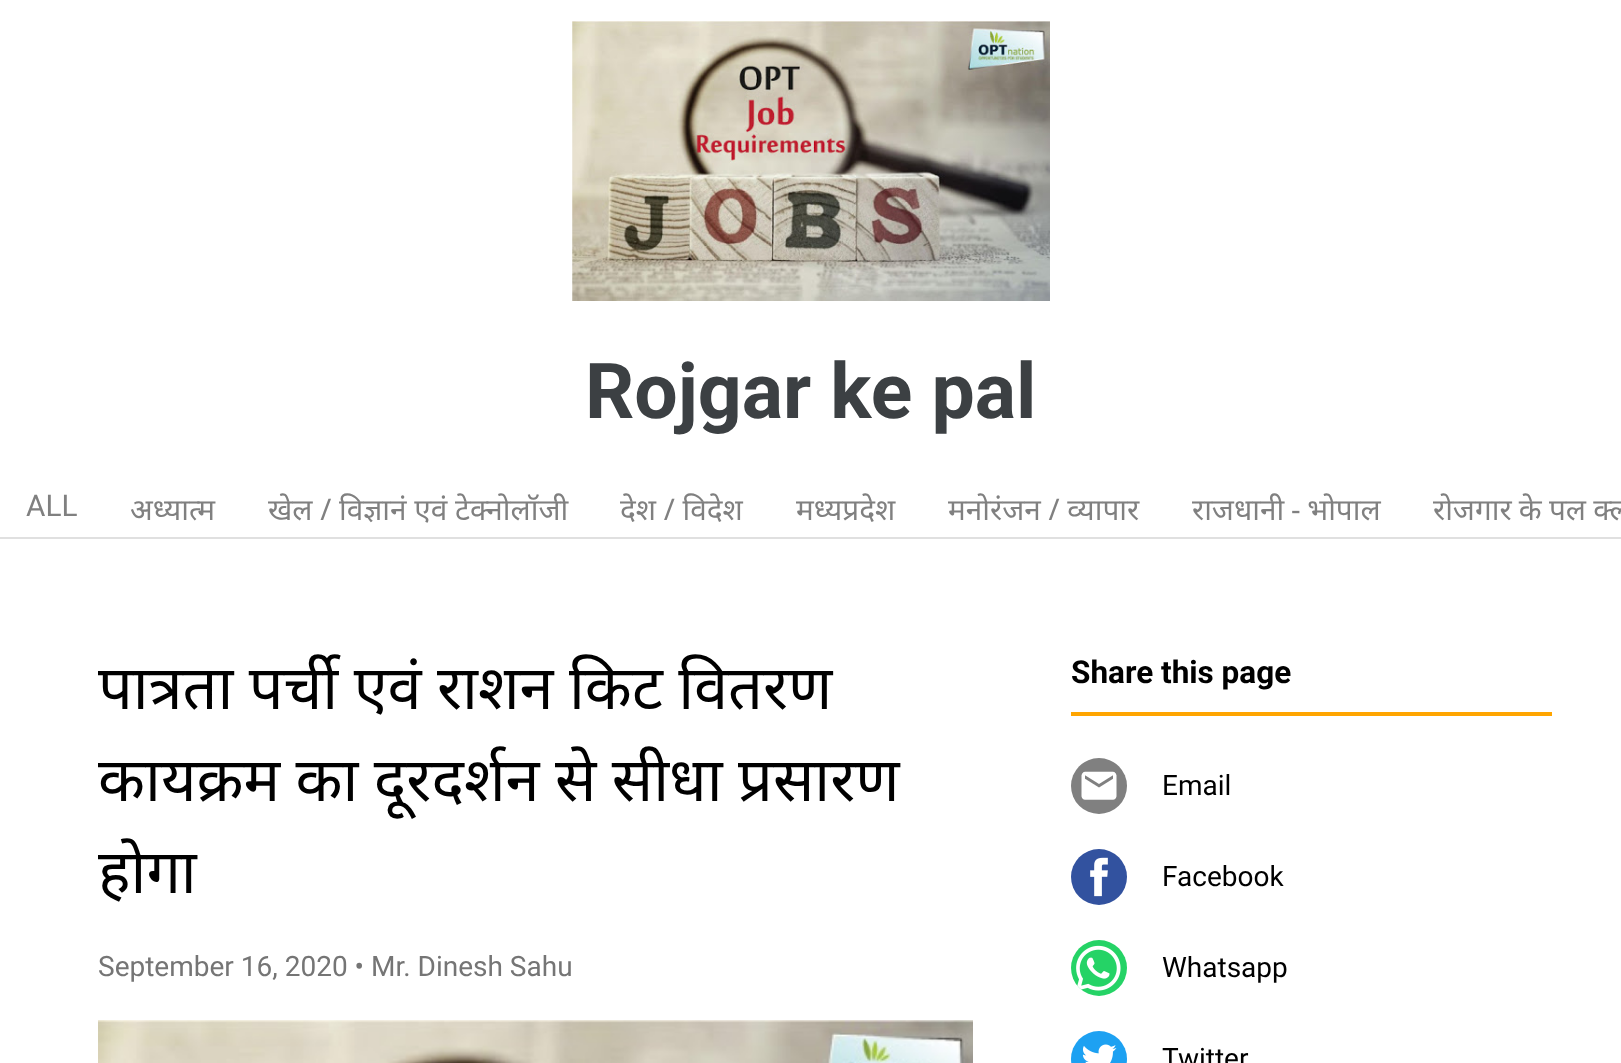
<?xml version="1.0" encoding="UTF-8"?>
<svg xmlns="http://www.w3.org/2000/svg" width="1621" height="1063">
    <defs>
        <clipPath id="clip1"><rect x="98" y="644" width="875" height="277"/></clipPath>
    </defs>
    <rect width="100%" height="100%" fill="#FFFFFF"/>
    <rect x="0" y="537" width="1621" height="2" fill="#E0E0E0"/>
    <image x="572" y="21" width="478" height="280" href="img_01.png"/>
    <text x="585" y="418" font-family="Roboto" font-size="77" font-weight="700" fill="#3C4043">Rojgar ke pal</text>
    <text x="26" y="516" font-family="Roboto" font-size="29.75" fill="#808080">ALL</text>
    <text x="130" y="520" font-family="Noto Sans" font-size="29.75" fill="#808080">अध्यात्म</text>
    <text x="268" y="520" font-family="Noto Sans" font-size="29.75" fill="#808080">खेल / विज्ञानं एवं टेक्नोलॉजी</text>
    <text x="620" y="520" font-family="Noto Sans" font-size="29.75" fill="#808080">देश / विदेश</text>
    <text x="796" y="520" font-family="Noto Sans" font-size="29.75" fill="#808080">मध्यप्रदेश</text>
    <text x="948" y="520" font-family="Noto Sans" font-size="29.75" fill="#808080">मनोरंजन / व्यापार</text>
    <text x="1192" y="520" word-spacing="-1" font-family="Noto Sans" font-size="29.75" fill="#808080">राजधानी - भोपाल</text>
    <text x="1433" y="520" word-spacing="-0.5" font-family="Noto Sans" font-size="29.75" fill="#808080">रोजगार के पल क्ल</text>
    <text font-family="Noto Sans" font-size="61.25" fill="#000000">
        <tspan x="98" y="709" word-spacing="-0.5">पात्रता पर्ची एवं राशन किट वितरण</tspan>
        <tspan x="98" y="801" word-spacing="-0.5">कायक्रम का दूरदर्शन से सीधा प्रसारण</tspan>
    </text>
    <g clip-path="url(#clip1)">
        <text x="98" y="893" font-family="Noto Sans" font-size="61.25" fill="#000000">होगा</text>
    </g>
    <text x="98" y="976" font-family="Roboto" font-size="28" fill="#757575">September 16, 2020 • Mr. Dinesh Sahu</text>
    <image x="98" y="1020" width="875" height="43" href="img_02.png"/>
    <rect x="1071" y="712" width="481" height="4" fill="#FFA500"/>
    <text x="1071" y="683" font-family="Roboto" font-size="31.5" font-weight="700" fill="#000000">Share this page</text>
    <circle cx="1099" cy="786" r="28" fill="#808080"/>
    <image x="1081" y="771" width="36" height="29" href="img_03.png"/>
    <text x="1162" y="795" font-family="Roboto" font-size="28" fill="#000000">Email</text>
    <circle cx="1099" cy="877" r="28" fill="#32529F"/>
    <image x="1090" y="857" width="18" height="40" href="img_04.png"/>
    <text x="1162" y="886" font-family="Roboto" font-size="28" fill="#000000">Facebook</text>
    <circle cx="1099" cy="968" r="28" fill="#25D366"/>
    <image x="1076" y="945" width="45" height="46" href="img_05.png"/>
    <text x="1162" y="977" font-family="Roboto" font-size="28" fill="#000000">Whatsapp</text>
    <circle cx="1099" cy="1059" r="28" fill="#1DA1F2"/>
    <image x="1082" y="1044" width="35" height="19" href="img_06.png"/>
    <text x="1162" y="1068" font-family="Roboto" font-size="28" fill="#000000">Twitter</text>
</svg>
